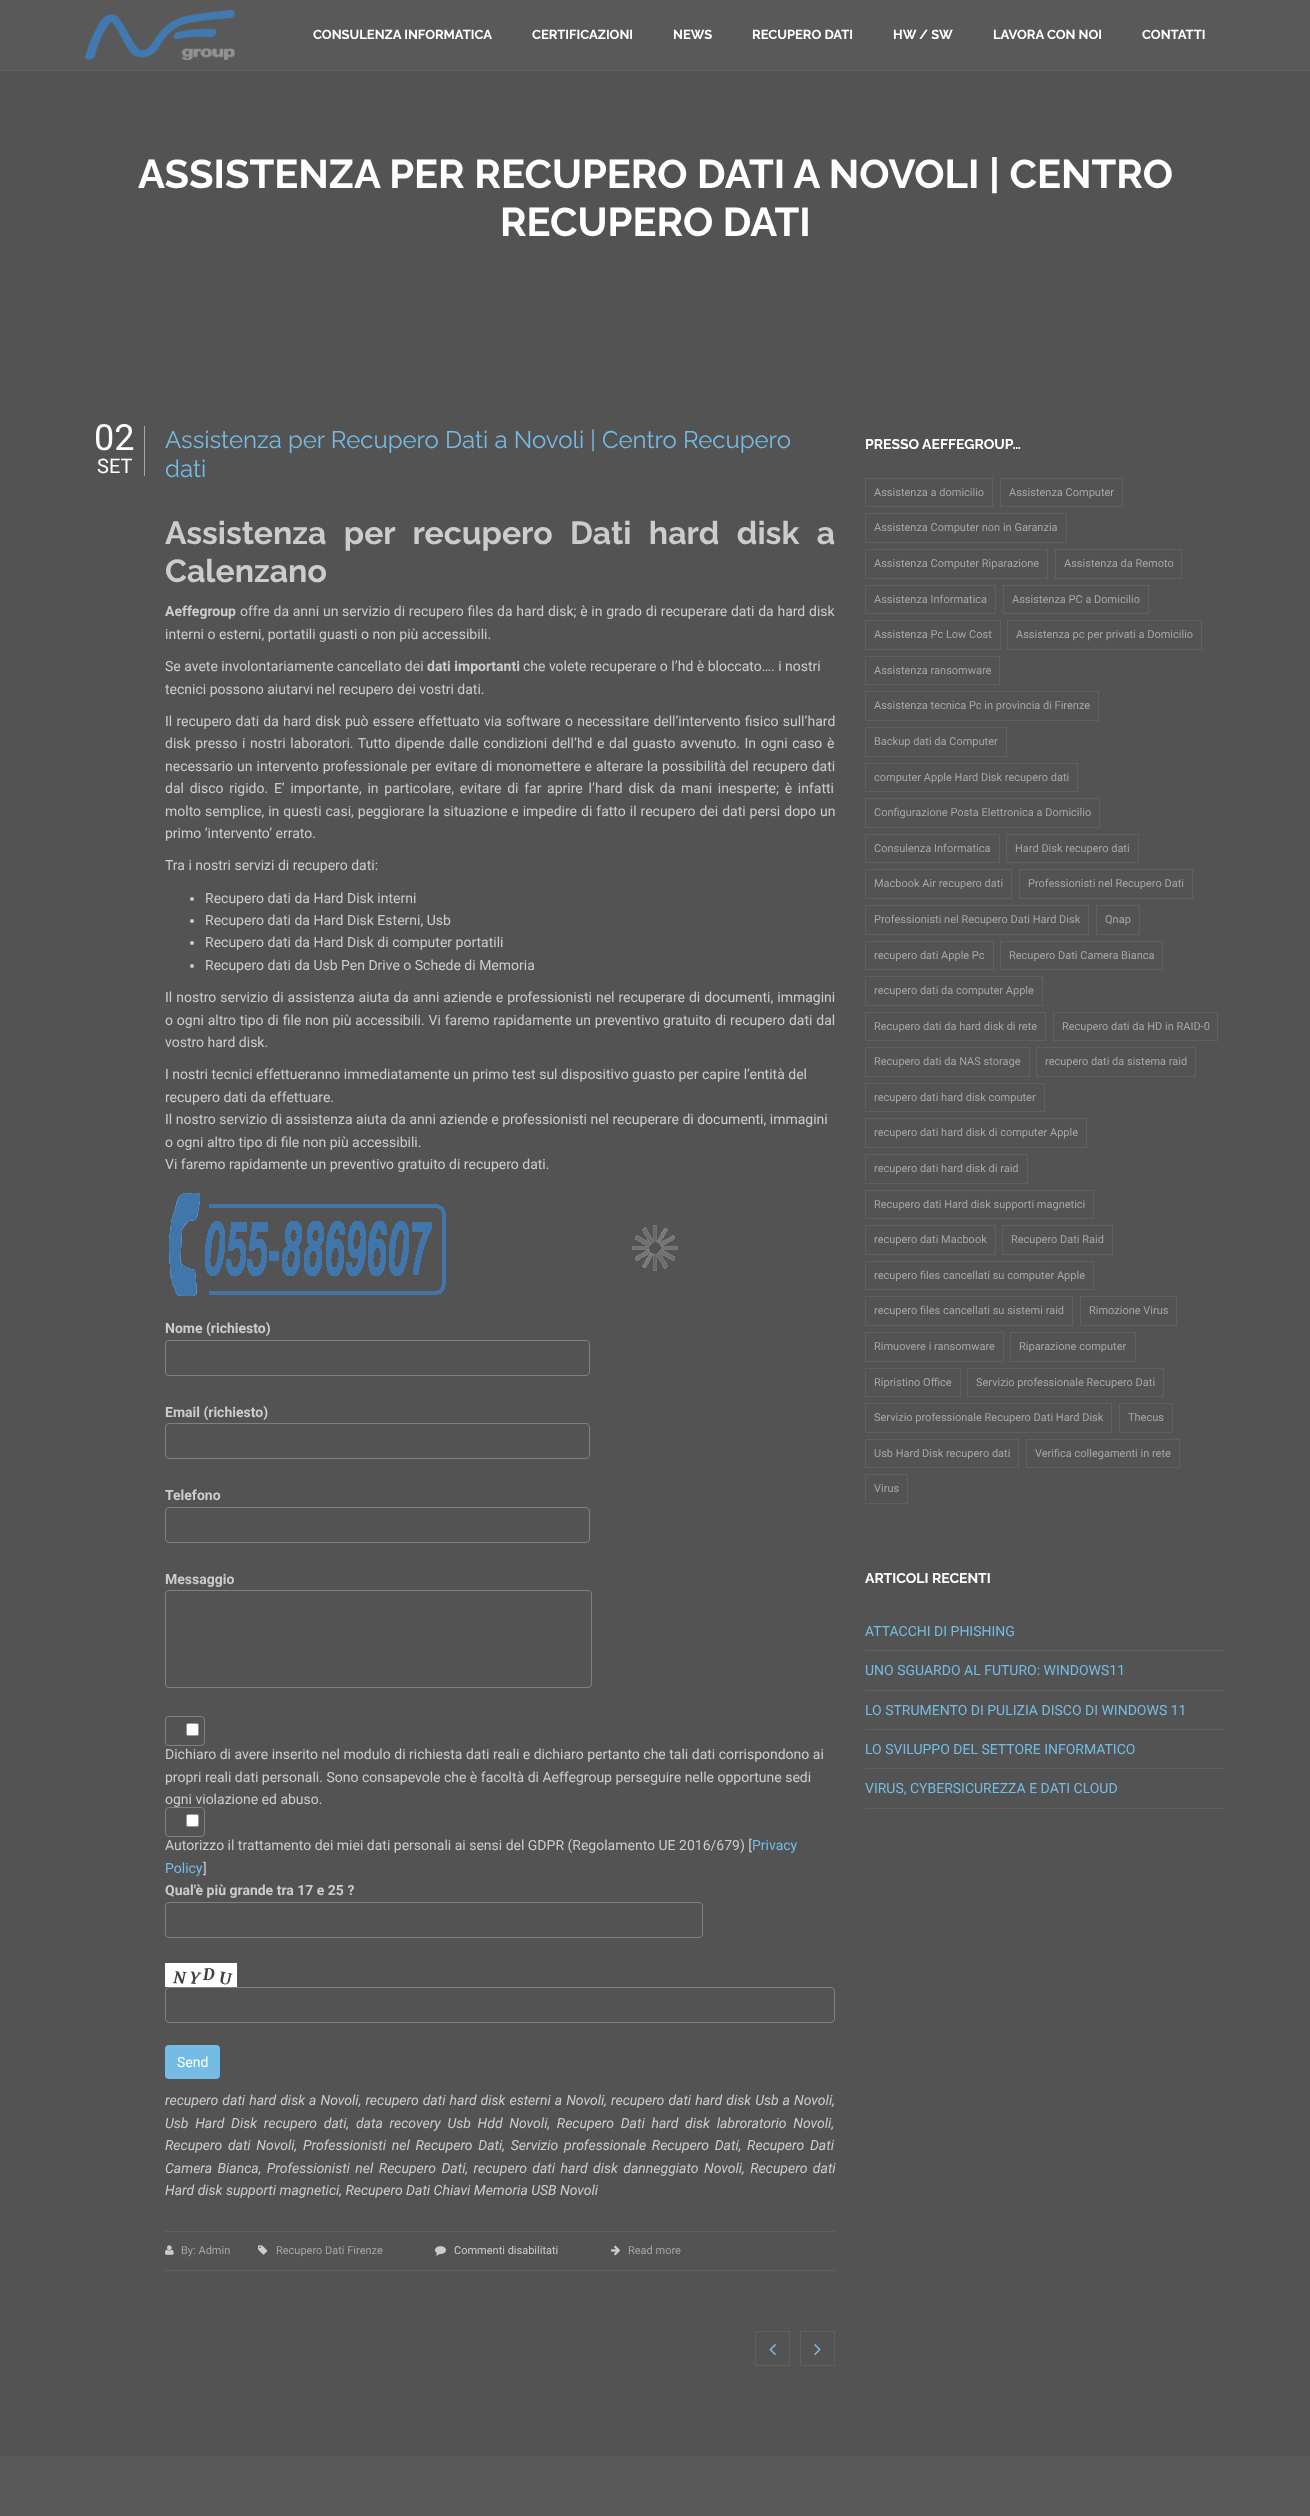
<?xml version="1.0" encoding="UTF-8"?>
<svg xmlns="http://www.w3.org/2000/svg" width="1310" height="2516">
    <rect width="100%" height="100%" fill="#535353"/>
    <rect x="0" y="0" width="1310" height="70" fill="#595959"/>
    <rect x="0" y="70" width="1310" height="1" fill="#606060"/>
    <image x="85" y="10" width="150" height="50" href="img_01.png"/>
    <text x="313" y="39" font-family="Raleway" font-size="13" font-weight="700" fill="#FFFFFF">CONSULENZA INFORMATICA</text>
    <text x="532" y="39" font-family="Raleway" font-size="13" font-weight="700" fill="#FFFFFF">CERTIFICAZIONI</text>
    <text x="673" y="39" font-family="Raleway" font-size="13" font-weight="700" fill="#FFFFFF">NEWS</text>
    <text x="752" y="39" font-family="Raleway" font-size="13" font-weight="700" fill="#FFFFFF">RECUPERO DATI</text>
    <text x="893" y="39" font-family="Raleway" font-size="13" font-weight="700" fill="#FFFFFF">HW / SW</text>
    <text x="993" y="39" font-family="Raleway" font-size="13" font-weight="700" fill="#FFFFFF">LAVORA CON NOI</text>
    <text x="1142" y="39" font-family="Raleway" font-size="13" font-weight="700" fill="#FFFFFF">CONTATTI</text>
    <text x="138" y="188" font-family="Raleway" font-size="40" font-weight="700" fill="#FFFFFF">ASSISTENZA PER RECUPERO DATI A NOVOLI | CENTRO</text>
    <text x="500" y="236" font-family="Raleway" font-size="40" font-weight="700" fill="#FFFFFF">RECUPERO DATI</text>
    <rect x="144" y="426" width="1" height="50" fill="#A6A6A6"/>
    <text x="94" y="450" font-family="Roboto" font-size="36" fill="#FFFFFF">02</text>
    <text x="97" y="473" font-family="Roboto" font-size="20" fill="#FFFFFF">SET</text>
    <text font-family="Raleway" font-size="24" fill="#75BCE4">
        <tspan x="165" y="448">Assistenza per Recupero Dati a Novoli | Centro Recupero</tspan>
        <tspan x="165" y="477">dati</tspan>
    </text>
    <text font-family="Raleway" font-size="32" font-weight="700" fill="#CCCCCC">
        <tspan x="165" y="544" word-spacing="9.75">Assistenza per recupero Dati hard disk a</tspan>
        <tspan x="165" y="582">Calenzano</tspan>
    </text>
    <text x="165" y="616" font-family="Roboto" font-size="14" font-weight="700" fill="#CCCCCC">Aeffegroup</text>
    <text x="240" y="616" word-spacing="0.25" font-family="Roboto" font-size="14" fill="#CCCCCC">offre da anni un servizio di recupero files da hard disk; è in grado di recuperare dati da hard disk</text>
    <text x="165" y="639" font-family="Roboto" font-size="14" fill="#CCCCCC">interni o esterni, portatili guasti o non più accessibili.</text>
    <text x="165" y="671" font-family="Roboto" font-size="14" fill="#CCCCCC">Se avete involontariamente cancellato dei</text>
    <text x="427" y="671" font-family="Roboto" font-size="14" font-weight="700" fill="#CCCCCC">dati importanti</text>
    <text x="523" y="671" font-family="Roboto" font-size="14" fill="#CCCCCC">che volete recuperare o l’hd è bloccato…. i nostri</text>
    <text x="165" y="694" font-family="Roboto" font-size="14" fill="#CCCCCC">tecnici possono aiutarvi nel recupero dei vostri dati.</text>
    <text font-family="Roboto" font-size="14" fill="#CCCCCC">
        <tspan x="165" y="726" word-spacing="0.75">Il recupero dati da hard disk può essere effettuato via software o necessitare dell’intervento fisico sull’hard</tspan>
        <tspan x="165" y="748" word-spacing="1.1">disk presso i nostri laboratori. Tutto dipende dalle condizioni dell’hd e dal guasto avvenuto. In ogni caso è</tspan>
        <tspan x="165" y="771" word-spacing="0.5">necessario un intervento professionale per evitare di monomettere e alterare la possibilità del recupero dati</tspan>
        <tspan x="165" y="793" word-spacing="2.25">dal disco rigido. E’ importante, in particolare, evitare di far aprire l’hard disk da mani inesperte; è infatti</tspan>
        <tspan x="165" y="816" word-spacing="0.5">molto semplice, in questi casi, peggiorare la situazione e impedire di fatto il recupero dei dati persi dopo un</tspan>
        <tspan x="165" y="838">primo ‘intervento’ errato.</tspan>
    </text>
    <text x="165" y="870" font-family="Roboto" font-size="14" fill="#CCCCCC">Tra i nostri servizi di recupero dati:</text>
    <circle cx="192" cy="899" r="2" fill="#CCCCCC"/>
    <text x="205" y="903" font-family="Roboto" font-size="14" fill="#CCCCCC">Recupero dati da Hard Disk interni</text>
    <circle cx="192" cy="921" r="2" fill="#CCCCCC"/>
    <text x="205" y="925" font-family="Roboto" font-size="14" fill="#CCCCCC">Recupero dati da Hard Disk Esterni, Usb</text>
    <circle cx="192" cy="943" r="2" fill="#CCCCCC"/>
    <text x="205" y="947" font-family="Roboto" font-size="14" fill="#CCCCCC">Recupero dati da Hard Disk di computer portatili</text>
    <circle cx="192" cy="966" r="2" fill="#CCCCCC"/>
    <text x="205" y="970" font-family="Roboto" font-size="14" fill="#CCCCCC">Recupero dati da Usb Pen Drive o Schede di Memoria</text>
    <text font-family="Roboto" font-size="14" fill="#CCCCCC">
        <tspan x="165" y="1002" word-spacing="0.5">Il nostro servizio di assistenza aiuta da anni aziende e professionisti nel recuperare di documenti, immagini</tspan>
        <tspan x="165" y="1025" word-spacing="0.4">o ogni altro tipo di file non più accessibili. Vi faremo rapidamente un preventivo gratuito di recupero dati dal</tspan>
        <tspan x="165" y="1047">vostro hard disk.</tspan>
    </text>
    <text font-family="Roboto" font-size="14" fill="#CCCCCC">
        <tspan x="165" y="1079">I nostri tecnici effettueranno immediatamente un primo test sul dispositivo guasto per capire l’entità del</tspan>
        <tspan x="165" y="1102">recupero dati da effettuare.</tspan>
        <tspan x="165" y="1124">Il nostro servizio di assistenza aiuta da anni aziende e professionisti nel recuperare di documenti, immagini</tspan>
        <tspan x="165" y="1147">o ogni altro tipo di file non più accessibili.</tspan>
        <tspan x="165" y="1169">Vi faremo rapidamente un preventivo gratuito di recupero dati.</tspan>
    </text>
    <image x="169" y="1193" width="277" height="103" href="img_02.png"/>
    <text x="165" y="1333" font-family="Roboto" font-size="14" font-weight="700" fill="#CCCCCC">Nome (richiesto)</text>
    <rect x="165.5" y="1340.5" width="424" height="35" rx="3.5" fill="none" stroke="#808080"/>
    <text x="165" y="1417" font-family="Roboto" font-size="14" font-weight="700" fill="#CCCCCC">Email (richiesto)</text>
    <rect x="165.5" y="1423.5" width="424" height="35" rx="3.5" fill="none" stroke="#808080"/>
    <text x="165" y="1500" font-family="Roboto" font-size="14" font-weight="700" fill="#CCCCCC">Telefono</text>
    <rect x="165.5" y="1507.5" width="424" height="35" rx="3.5" fill="none" stroke="#808080"/>
    <text x="165" y="1584" font-family="Roboto" font-size="14" font-weight="700" fill="#CCCCCC">Messaggio</text>
    <rect x="165.5" y="1590.5" width="426" height="97" rx="3.5" fill="none" stroke="#808080"/>
    <rect x="165.5" y="1716.5" width="39" height="29" rx="3.5" fill="none" stroke="#808080"/>
    <rect x="186.5" y="1723.5" width="12" height="12" rx="1.5" fill="#FFFFFF" stroke="#989898"/>
    <text font-family="Roboto" font-size="14" fill="#CCCCCC">
        <tspan x="165" y="1759">Dichiaro di avere inserito nel modulo di richiesta dati reali e dichiaro pertanto che tali dati corrispondono ai</tspan>
        <tspan x="165" y="1782">propri reali dati personali. Sono consapevole che è facoltà di Aeffegroup perseguire nelle opportune sedi</tspan>
        <tspan x="165" y="1804">ogni violazione ed abuso.</tspan>
    </text>
    <rect x="165.5" y="1807.5" width="39" height="29" rx="3.5" fill="none" stroke="#808080"/>
    <rect x="186.5" y="1814.5" width="12" height="12" rx="1.5" fill="#FFFFFF" stroke="#989898"/>
    <text x="165" y="1850" font-family="Roboto" font-size="14" fill="#CCCCCC">Autorizzo il trattamento dei miei dati personali ai sensi del GDPR (Regolamento UE 2016/679) [</text>
    <text x="752" y="1850" font-family="Roboto" font-size="14" fill="#75BCE4">Privacy</text>
    <text x="165" y="1873" font-family="Roboto" font-size="14" fill="#75BCE4">Policy</text>
    <text x="203" y="1873" font-family="Roboto" font-size="14" fill="#CCCCCC">]</text>
    <text x="165" y="1895" font-family="Roboto" font-size="14" font-weight="700" fill="#CCCCCC">Qual'è più grande tra 17 e 25 ?</text>
    <rect x="165.5" y="1902.5" width="537" height="35" rx="3.5" fill="none" stroke="#808080"/>
    <image x="165" y="1963" width="72" height="24" href="img_03.png"/>
    <rect x="165.5" y="1987.5" width="669" height="35" rx="3.5" fill="none" stroke="#808080"/>
    <rect x="165" y="2045" width="55" height="34" rx="4" fill="#75BCE4"/>
    <text x="177" y="2067" font-family="Roboto" font-size="14" fill="#FFFFFF">Send</text>
    <text font-family="Roboto" font-size="14" font-style="italic" fill="#CCCCCC">
        <tspan x="165" y="2105" word-spacing="0.6">recupero dati hard disk a Novoli, recupero dati hard disk esterni a Novoli, recupero dati hard disk Usb a Novoli,</tspan>
        <tspan x="165" y="2128" word-spacing="3.25">Usb Hard Disk recupero dati, data recovery Usb Hdd Novoli, Recupero Dati hard disk labroratorio Novoli,</tspan>
        <tspan x="165" y="2150" word-spacing="2.25">Recupero dati Novoli, Professionisti nel Recupero Dati, Servizio professionale Recupero Dati, Recupero Dati</tspan>
        <tspan x="165" y="2173" word-spacing="2">Camera Bianca, Professionisti nel Recupero Dati, recupero dati hard disk danneggiato Novoli, Recupero dati</tspan>
        <tspan x="165" y="2195">Hard disk supporti magnetici, Recupero Dati Chiavi Memoria USB Novoli</tspan>
    </text>
    <rect x="165" y="2231" width="670" height="1" fill="#606060"/>
    <rect x="165" y="2270" width="670" height="1" fill="#606060"/>
    <image x="165" y="2245" width="9" height="10" href="img_04.png"/>
    <text x="181" y="2254" font-family="Roboto" font-size="11" fill="#A6A6A6">By: Admin</text>
    <image x="258" y="2245" width="10" height="10" href="img_05.png"/>
    <text x="276" y="2254" font-family="Roboto" font-size="11" fill="#A6A6A6">Recupero Dati Firenze</text>
    <image x="435" y="2246" width="11" height="10" href="img_06.png"/>
    <text x="454" y="2254" font-family="Roboto" font-size="11" fill="#CCCCCC">Commenti disabilitati</text>
    <image x="611" y="2245" width="9" height="11" href="img_07.png"/>
    <text x="628" y="2254" font-family="Roboto" font-size="11" fill="#A6A6A6">Read more</text>
    <rect x="755.5" y="2331.5" width="34" height="34" fill="none" stroke="#606060"/>
    <image x="769" y="2344" width="7" height="12" href="img_08.png"/>
    <rect x="800.5" y="2331.5" width="34" height="34" fill="none" stroke="#606060"/>
    <image x="814" y="2344" width="7" height="12" href="img_09.png"/>
    <text x="865" y="449" font-family="Raleway" font-size="14" font-weight="700" fill="#FFFFFF">PRESSO AEFFEGROUP…</text>
    <rect x="865.5" y="478.5" width="127" height="28" fill="none" stroke="#606060"/>
    <text x="874" y="496" font-family="Roboto" font-size="11" fill="#A6A6A6">Assistenza a domicilio</text>
    <rect x="1000.5" y="478.5" width="122" height="28" fill="none" stroke="#606060"/>
    <text x="1009" y="496" font-family="Roboto" font-size="11" fill="#A6A6A6">Assistenza Computer</text>
    <rect x="865.5" y="513.5" width="201" height="29" fill="none" stroke="#606060"/>
    <text x="874" y="531" font-family="Roboto" font-size="11" fill="#A6A6A6">Assistenza Computer non in Garanzia</text>
    <rect x="865.5" y="549.5" width="182" height="29" fill="none" stroke="#606060"/>
    <text x="874" y="567" font-family="Roboto" font-size="11" fill="#A6A6A6">Assistenza Computer Riparazione</text>
    <rect x="1055.5" y="549.5" width="126" height="29" fill="none" stroke="#606060"/>
    <text x="1064" y="567" font-family="Roboto" font-size="11" fill="#A6A6A6">Assistenza da Remoto</text>
    <rect x="865.5" y="585.5" width="130" height="28" fill="none" stroke="#606060"/>
    <text x="874" y="603" font-family="Roboto" font-size="11" fill="#A6A6A6">Assistenza Informatica</text>
    <rect x="1003.5" y="585.5" width="145" height="28" fill="none" stroke="#606060"/>
    <text x="1012" y="603" font-family="Roboto" font-size="11" fill="#A6A6A6">Assistenza PC a Domicilio</text>
    <rect x="865.5" y="620.5" width="135" height="29" fill="none" stroke="#606060"/>
    <text x="874" y="638" font-family="Roboto" font-size="11" fill="#A6A6A6">Assistenza Pc Low Cost</text>
    <rect x="1007.5" y="620.5" width="194" height="29" fill="none" stroke="#606060"/>
    <text x="1016" y="638" font-family="Roboto" font-size="11" fill="#A6A6A6">Assistenza pc per privati a Domicilio</text>
    <rect x="865.5" y="656.5" width="134" height="28" fill="none" stroke="#606060"/>
    <text x="874" y="674" font-family="Roboto" font-size="11" fill="#A6A6A6">Assistenza ransomware</text>
    <rect x="865.5" y="691.5" width="233" height="29" fill="none" stroke="#606060"/>
    <text x="874" y="709" font-family="Roboto" font-size="11" fill="#A6A6A6">Assistenza tecnica Pc in provincia di Firenze</text>
    <rect x="865.5" y="727.5" width="141" height="29" fill="none" stroke="#606060"/>
    <text x="874" y="745" font-family="Roboto" font-size="11" fill="#A6A6A6">Backup dati da Computer</text>
    <rect x="865.5" y="763.5" width="212" height="28" fill="none" stroke="#606060"/>
    <text x="874" y="781" font-family="Roboto" font-size="11" fill="#A6A6A6">computer Apple Hard Disk recupero dati</text>
    <rect x="865.5" y="798.5" width="234" height="29" fill="none" stroke="#606060"/>
    <text x="874" y="816" font-family="Roboto" font-size="11" fill="#A6A6A6">Configurazione Posta Elettronica a Domicilio</text>
    <rect x="865.5" y="834.5" width="134" height="28" fill="none" stroke="#606060"/>
    <text x="874" y="852" font-family="Roboto" font-size="11" fill="#A6A6A6">Consulenza Informatica</text>
    <rect x="1006.5" y="834.5" width="132" height="28" fill="none" stroke="#606060"/>
    <text x="1015" y="852" font-family="Roboto" font-size="11" fill="#A6A6A6">Hard Disk recupero dati</text>
    <rect x="865.5" y="869.5" width="146" height="29" fill="none" stroke="#606060"/>
    <text x="874" y="887" font-family="Roboto" font-size="11" fill="#A6A6A6">Macbook Air recupero dati</text>
    <rect x="1019.5" y="869.5" width="173" height="29" fill="none" stroke="#606060"/>
    <text x="1028" y="887" font-family="Roboto" font-size="11" fill="#A6A6A6">Professionisti nel Recupero Dati</text>
    <rect x="865.5" y="905.5" width="223" height="29" fill="none" stroke="#606060"/>
    <text x="874" y="923" font-family="Roboto" font-size="11" fill="#A6A6A6">Professionisti nel Recupero Dati Hard Disk</text>
    <rect x="1096.5" y="905.5" width="43" height="29" fill="none" stroke="#606060"/>
    <text x="1105" y="923" font-family="Roboto" font-size="11" fill="#A6A6A6">Qnap</text>
    <rect x="865.5" y="941.5" width="128" height="28" fill="none" stroke="#606060"/>
    <text x="874" y="959" font-family="Roboto" font-size="11" fill="#A6A6A6">recupero dati Apple Pc</text>
    <rect x="1000.5" y="941.5" width="162" height="28" fill="none" stroke="#606060"/>
    <text x="1009" y="959" font-family="Roboto" font-size="11" fill="#A6A6A6">Recupero Dati Camera Bianca</text>
    <rect x="865.5" y="976.5" width="177" height="29" fill="none" stroke="#606060"/>
    <text x="874" y="994" font-family="Roboto" font-size="11" fill="#A6A6A6">recupero dati da computer Apple</text>
    <rect x="865.5" y="1012.5" width="180" height="28" fill="none" stroke="#606060"/>
    <text x="874" y="1030" font-family="Roboto" font-size="11" fill="#A6A6A6">Recupero dati da hard disk di rete</text>
    <rect x="1053.5" y="1012.5" width="164" height="28" fill="none" stroke="#606060"/>
    <text x="1062" y="1030" font-family="Roboto" font-size="11" fill="#A6A6A6">Recupero dati da HD in RAID-0</text>
    <rect x="865.5" y="1047.5" width="164" height="29" fill="none" stroke="#606060"/>
    <text x="874" y="1065" font-family="Roboto" font-size="11" fill="#A6A6A6">Recupero dati da NAS storage</text>
    <rect x="1036.5" y="1047.5" width="159" height="29" fill="none" stroke="#606060"/>
    <text x="1045" y="1065" font-family="Roboto" font-size="11" fill="#A6A6A6">recupero dati da sistema raid</text>
    <rect x="865.5" y="1083.5" width="179" height="28" fill="none" stroke="#606060"/>
    <text x="874" y="1101" font-family="Roboto" font-size="11" fill="#A6A6A6">recupero dati hard disk computer</text>
    <rect x="865.5" y="1118.5" width="221" height="29" fill="none" stroke="#606060"/>
    <text x="874" y="1136" font-family="Roboto" font-size="11" fill="#A6A6A6">recupero dati hard disk di computer Apple</text>
    <rect x="865.5" y="1154.5" width="162" height="29" fill="none" stroke="#606060"/>
    <text x="874" y="1172" font-family="Roboto" font-size="11" fill="#A6A6A6">recupero dati hard disk di raid</text>
    <rect x="865.5" y="1190.5" width="228" height="28" fill="none" stroke="#606060"/>
    <text x="874" y="1208" font-family="Roboto" font-size="11" fill="#A6A6A6">Recupero dati Hard disk supporti magnetici</text>
    <rect x="865.5" y="1225.5" width="130" height="29" fill="none" stroke="#606060"/>
    <text x="874" y="1243" font-family="Roboto" font-size="11" fill="#A6A6A6">recupero dati Macbook</text>
    <rect x="1002.5" y="1225.5" width="110" height="29" fill="none" stroke="#606060"/>
    <text x="1011" y="1243" font-family="Roboto" font-size="11" fill="#A6A6A6">Recupero Dati Raid</text>
    <rect x="865.5" y="1261.5" width="228" height="28" fill="none" stroke="#606060"/>
    <text x="874" y="1279" font-family="Roboto" font-size="11" fill="#A6A6A6">recupero files cancellati su computer Apple</text>
    <rect x="865.5" y="1296.5" width="207" height="29" fill="none" stroke="#606060"/>
    <text x="874" y="1314" font-family="Roboto" font-size="11" fill="#A6A6A6">recupero files cancellati su sistemi raid</text>
    <rect x="1080.5" y="1296.5" width="96" height="29" fill="none" stroke="#606060"/>
    <text x="1089" y="1314" font-family="Roboto" font-size="11" fill="#A6A6A6">Rimozione Virus</text>
    <rect x="865.5" y="1332.5" width="138" height="29" fill="none" stroke="#606060"/>
    <text x="874" y="1350" font-family="Roboto" font-size="11" fill="#A6A6A6">Rimuovere i ransomware</text>
    <rect x="1010.5" y="1332.5" width="125" height="29" fill="none" stroke="#606060"/>
    <text x="1019" y="1350" font-family="Roboto" font-size="11" fill="#A6A6A6">Riparazione computer</text>
    <rect x="865.5" y="1368.5" width="95" height="28" fill="none" stroke="#606060"/>
    <text x="874" y="1386" font-family="Roboto" font-size="11" fill="#A6A6A6">Ripristino Office</text>
    <rect x="967.5" y="1368.5" width="196" height="28" fill="none" stroke="#606060"/>
    <text x="976" y="1386" font-family="Roboto" font-size="11" fill="#A6A6A6">Servizio professionale Recupero Dati</text>
    <rect x="865.5" y="1403.5" width="246" height="29" fill="none" stroke="#606060"/>
    <text x="874" y="1421" font-family="Roboto" font-size="11" fill="#A6A6A6">Servizio professionale Recupero Dati Hard Disk</text>
    <rect x="1119.5" y="1403.5" width="53" height="29" fill="none" stroke="#606060"/>
    <text x="1128" y="1421" font-family="Roboto" font-size="11" fill="#A6A6A6">Thecus</text>
    <rect x="865.5" y="1439.5" width="153" height="28" fill="none" stroke="#606060"/>
    <text x="874" y="1457" font-family="Roboto" font-size="11" fill="#A6A6A6">Usb Hard Disk recupero dati</text>
    <rect x="1026.5" y="1439.5" width="153" height="28" fill="none" stroke="#606060"/>
    <text x="1035" y="1457" font-family="Roboto" font-size="11" fill="#A6A6A6">Verifica collegamenti in rete</text>
    <rect x="865.5" y="1474.5" width="42" height="29" fill="none" stroke="#606060"/>
    <text x="874" y="1492" font-family="Roboto" font-size="11" fill="#A6A6A6">Virus</text>
    <text x="865" y="1583" font-family="Raleway" font-size="14" font-weight="700" fill="#FFFFFF">ARTICOLI RECENTI</text>
    <rect x="865" y="1650" width="360" height="1" fill="#606060"/>
    <text x="865" y="1636" font-family="Roboto" font-size="14" fill="#75BCE4">ATTACCHI DI PHISHING</text>
    <rect x="865" y="1690" width="360" height="1" fill="#606060"/>
    <text x="865" y="1675" font-family="Roboto" font-size="14" fill="#75BCE4">UNO SGUARDO AL FUTURO: WINDOWS11</text>
    <rect x="865" y="1729" width="360" height="1" fill="#606060"/>
    <text x="865" y="1715" font-family="Roboto" font-size="14" fill="#75BCE4">LO STRUMENTO DI PULIZIA DISCO DI WINDOWS 11</text>
    <rect x="865" y="1768" width="360" height="1" fill="#606060"/>
    <text x="865" y="1754" font-family="Roboto" font-size="14" fill="#75BCE4">LO SVILUPPO DEL SETTORE INFORMATICO</text>
    <rect x="865" y="1808" width="360" height="1" fill="#606060"/>
    <text x="865" y="1793" font-family="Roboto" font-size="14" fill="#75BCE4">VIRUS, CYBERSICUREZZA E DATI CLOUD</text>
    <image x="632" y="1225" width="46" height="46" href="img_10.png"/>
    <rect x="0" y="2456" width="1310" height="60" fill="#595959"/>
</svg>
